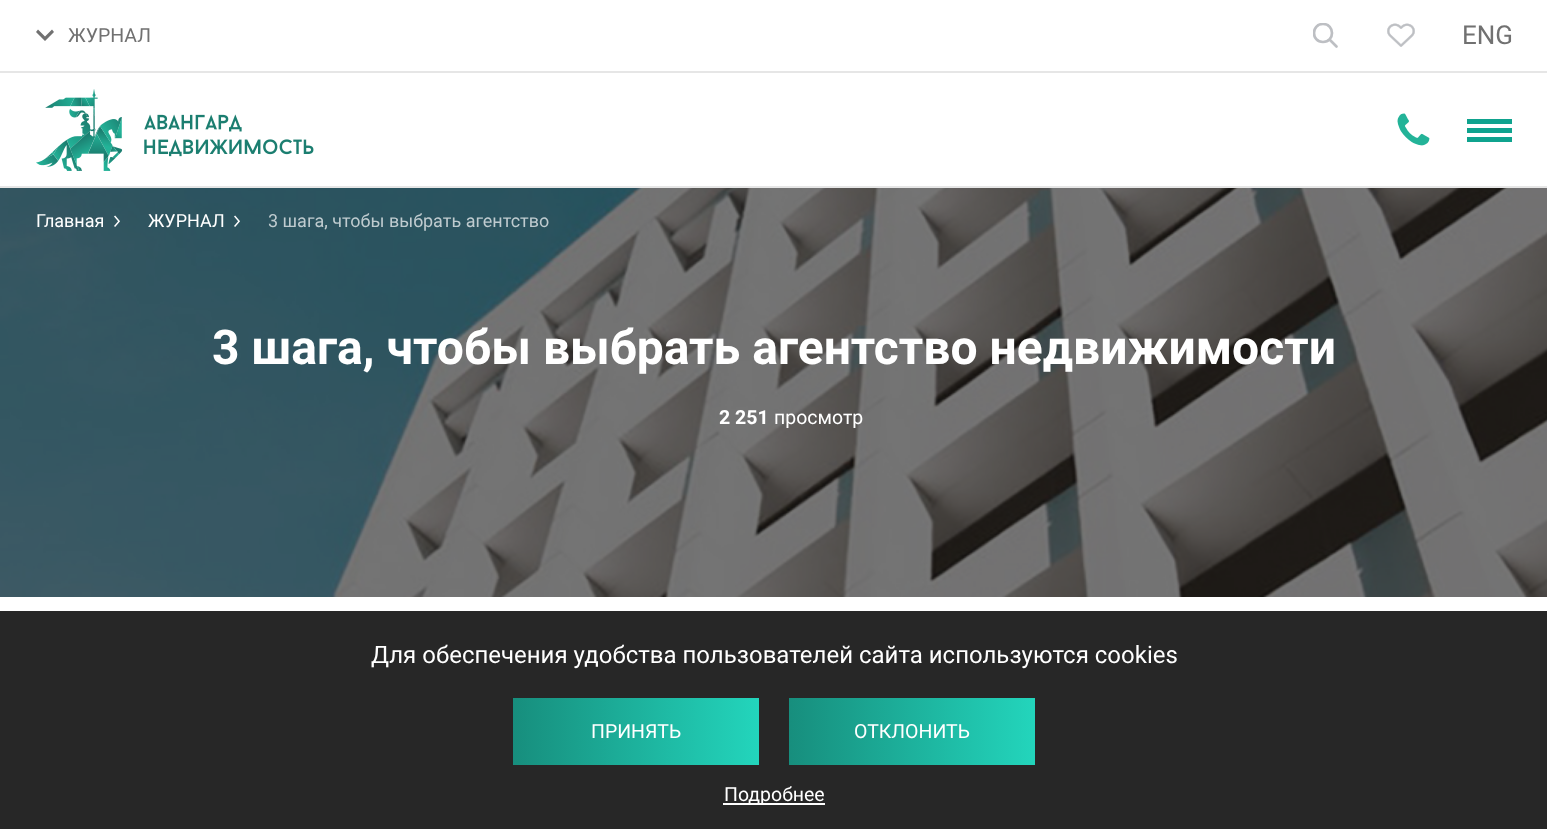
<?xml version="1.0" encoding="UTF-8"?>
<svg xmlns="http://www.w3.org/2000/svg" width="1547" height="829">
    <defs>
        <clipPath id="clip1"><rect x="1313" y="23" width="25" height="25"/></clipPath>
        <linearGradient id="g1" gradientUnits="userSpaceOnUse" x1="513" y1="731" x2="1005" y2="731"><stop offset="0" stop-color="#23D5BC"/><stop offset="0" stop-color="#178E7D"/><stop offset="0.5" stop-color="#23D5BC"/><stop offset="1" stop-color="#178E7D"/></linearGradient>
        <linearGradient id="g2" gradientUnits="userSpaceOnUse" x1="789" y1="731" x2="1281" y2="731"><stop offset="0" stop-color="#23D5BC"/><stop offset="0" stop-color="#178E7D"/><stop offset="0.5" stop-color="#23D5BC"/><stop offset="1" stop-color="#178E7D"/></linearGradient>
    </defs>
    <rect width="100%" height="100%" fill="#FFFFFF"/>
    <rect x="0" y="71" width="1547" height="2" fill="#E6E6E6"/>
    <path d="M 52 29.5 L 45 36.5 L 38 29.5 L 36 32 L 45 41 L 54 32 Z" fill="#717171"/>
    <text x="68" y="42" font-family="Roboto" font-size="19.5" fill="#717171">ЖУРНАЛ</text>
    <g clip-path="url(#clip1)">
        <path d="M 1323 42 C 1335 42 1335 24 1323 24 C 1311 24 1311 42 1323 42 Z" fill="none" stroke="#BDBFC3" stroke-width="2.7" stroke-linecap="round" stroke-linejoin="round"/>
    </g>
    <path d="M 1336.5 46.5 L 1330.5 40.5" fill="none" stroke="#BDBFC3" stroke-width="2.7" stroke-linecap="round" stroke-linejoin="round"/>
    <image x="1387" y="23" width="28" height="24" href="img_01.png"/>
    <text x="1462" y="44" font-family="Roboto" font-size="26" fill="#717171">ENG</text>
    <rect x="0" y="186" width="1547" height="2" fill="#E6E6E6"/>
    <image x="36" y="89" width="278" height="82" href="img_02.png"/>
    <image x="1397" y="113" width="33" height="33" href="img_03.png"/>
    <rect x="1467" y="128" width="45" height="5" fill="#0FA38E"/>
    <rect x="1467" y="119" width="45" height="5" fill="#0FA38E"/>
    <rect x="1467" y="137" width="45" height="5" fill="#0FA38E"/>
    <image x="0" y="188" width="1547" height="409" href="img_04.png"/>
    <text x="36" y="227" font-family="Roboto" font-size="18" fill="#FFFFFF">Главная</text>
    <image x="114" y="215" width="6" height="12" href="img_05.png"/>
    <text x="148" y="227" font-family="Roboto" font-size="18" fill="#FFFFFF">ЖУРНАЛ</text>
    <image x="234" y="215" width="6" height="12" href="img_06.png"/>
    <text x="268" y="227" font-family="Roboto" font-size="18" fill="#BFCBCF">3 шага, чтобы выбрать агентство</text>
    <text x="212" y="364" font-family="Roboto" font-size="48" font-weight="700" fill="#FFFFFF">3 шага, чтобы выбрать агентство недвижимости</text>
    <text x="719" y="424" font-family="Roboto" font-size="19.5" font-weight="700" fill="#FFFFFF">2 251</text>
    <text x="774" y="424" font-family="Roboto" font-size="19.5" fill="#FFFFFF">просмотр</text>
    <rect x="0" y="611" width="1547" height="218" fill="#272727"/>
    <text x="371" y="663" font-family="Roboto" font-size="24" fill="#FFFFFF">Для обеспечения удобства пользователей сайта используются cookies</text>
    <rect x="513" y="698" width="246" height="67" fill="url(#g1)"/>
    <text x="591" y="738" font-family="Roboto" font-size="19.5" fill="#FFFFFF">ПРИНЯТЬ</text>
    <rect x="789" y="698" width="246" height="67" fill="url(#g2)"/>
    <text x="854" y="738" font-family="Roboto" font-size="19.5" fill="#FFFFFF">ОТКЛОНИТЬ</text>
    <rect x="723" y="803" width="102" height="2" fill="#FFFFFF"/>
    <text x="724" y="801" font-family="Roboto" font-size="19.5" fill="#FFFFFF">Подробнее</text>
</svg>
